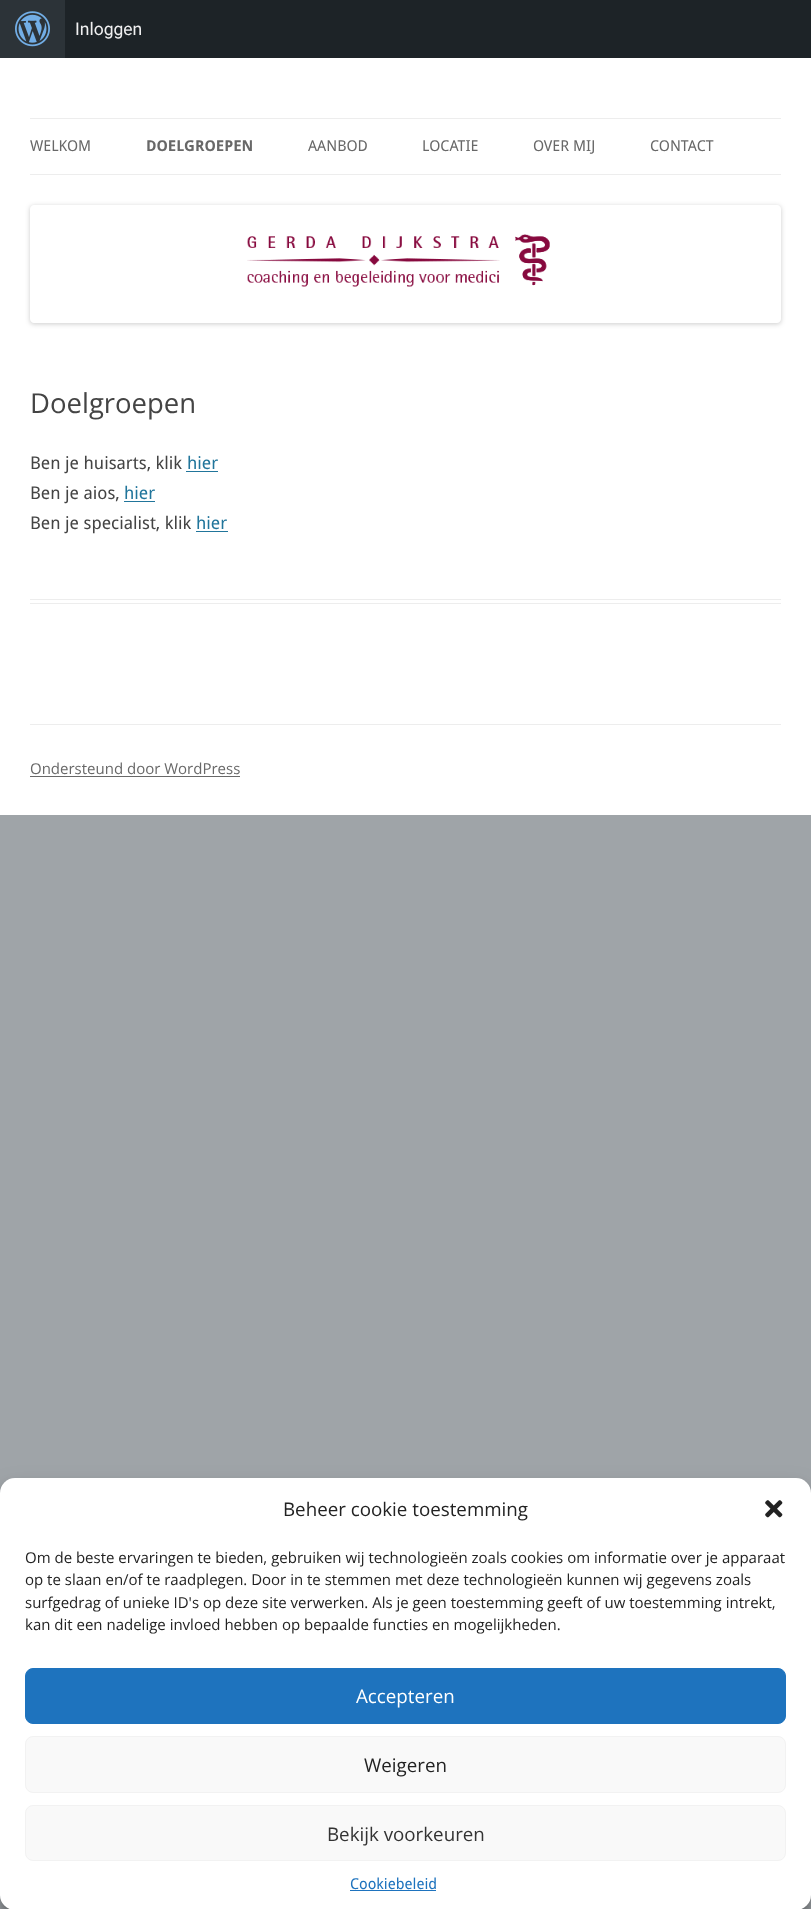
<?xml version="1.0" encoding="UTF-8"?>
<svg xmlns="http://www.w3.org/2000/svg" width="811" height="1909">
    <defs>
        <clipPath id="clip1"><path d="M 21 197 H 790 V 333 H 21 Z M 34 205 H 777 C 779 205 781 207 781 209 V 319 C 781 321 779 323 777 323 H 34 C 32 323 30 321 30 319 V 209 C 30 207 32 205 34 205 Z" clip-rule="evenodd"/></clipPath>
        <filter id="blur1" x="-50%" y="-200%" width="200%" height="500%"><feGaussianBlur stdDeviation="2.5"/></filter>
        <filter id="blur2" x="-50%" y="-200%" width="200%" height="500%"><feGaussianBlur stdDeviation="4"/></filter>
        <filter id="blur3" x="-50%" y="-200%" width="200%" height="500%"><feGaussianBlur stdDeviation="12.5"/></filter>
    </defs>
    <rect width="100%" height="100%" fill="#9FA4A8"/>
    <rect x="65" y="0" width="746" height="58" fill="#1D2327"/>
    <rect x="0" y="0" width="65" height="58" fill="#2C3338"/>
    <image x="15" y="11" width="35" height="36" href="img_01.png"/>
    <text x="75" y="35" font-family="Roboto" font-size="17.5" fill="#F0F0F1">Inloggen</text>
    <rect x="0" y="58" width="811" height="757" fill="#FFFFFF"/>
    <rect x="30" y="118" width="751" height="1" fill="#EDEDED"/>
    <rect x="30" y="174" width="751" height="1" fill="#EDEDED"/>
    <text x="30" y="151" font-family="Droid Sans" font-size="15" fill="#686868">WELKOM</text>
    <text x="146" y="151" font-family="Droid Sans" font-size="15" font-weight="700" fill="#686868">DOELGROEPEN</text>
    <text x="308" y="151" font-family="Droid Sans" font-size="15" fill="#686868">AANBOD</text>
    <text x="422" y="151" font-family="Droid Sans" font-size="15" fill="#686868">LOCATIE</text>
    <text x="533" y="151" font-family="Droid Sans" font-size="15" fill="#686868">OVER MIJ</text>
    <text x="650" y="151" font-family="Droid Sans" font-size="15" fill="#686868">CONTACT</text>
    <g clip-path="url(#clip1)">
        <rect x="30" y="206" width="751" height="118" rx="4" fill="#000000" fill-opacity="0.2" filter="url(#blur1)"/>
    </g>
    <image x="247" y="234" width="303" height="53" href="img_02.png"/>
    <rect x="30" y="599" width="751" height="1" fill="#EDEDED"/>
    <rect x="30" y="603" width="751" height="1" fill="#EDEDED"/>
    <text x="30" y="413" font-family="Open Sans" font-size="27.5" fill="#444444">Doelgroepen</text>
    <text x="30" y="469" font-family="Droid Sans" font-size="17.5" fill="#444444">Ben je huisarts, klik</text>
    <text x="187" y="469" font-family="Droid Sans" font-size="17.5" fill="#21759B">hier</text>
    <rect x="186" y="471" width="32" height="1" fill="#21759B"/>
    <text x="30" y="499" font-family="Droid Sans" font-size="17.5" fill="#444444">Ben je aios,</text>
    <text x="124" y="499" font-family="Droid Sans" font-size="17.5" fill="#21759B">hier</text>
    <rect x="124" y="501" width="31" height="1" fill="#21759B"/>
    <text x="30" y="529" font-family="Droid Sans" font-size="17.5" fill="#444444">Ben je specialist, klik</text>
    <text x="196" y="529" font-family="Droid Sans" font-size="17.5" fill="#21759B">hier</text>
    <rect x="196" y="531" width="32" height="1" fill="#21759B"/>
    <rect x="30" y="724" width="751" height="1" fill="#EDEDED"/>
    <text x="30" y="774" font-family="Open Sans" font-size="15" fill="#686868">Ondersteund door WordPress</text>
    <rect x="30" y="776" width="210" height="1" fill="#686868"/>
    <rect x="0" y="1485" width="811" height="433" rx="15" fill="#000000" fill-opacity="0.23" filter="url(#blur2)"/>
    <rect x="0" y="1490" width="811" height="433" rx="15" fill="#000000" fill-opacity="0.19" filter="url(#blur3)"/>
    <rect x="0" y="1478" width="811" height="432" rx="15" fill="#FFFFFF"/>
    <text x="283" y="1516" font-family="Open Sans" font-size="18.75" fill="#222222">Beheer cookie toestemming</text>
    <image x="765" y="1500" width="18" height="18" href="img_03.png"/>
    <text font-family="Open Sans" font-size="15" fill="#222222">
        <tspan x="25" y="1563">Om de beste ervaringen te bieden, gebruiken wij technologieën zoals cookies om informatie over je apparaat</tspan>
        <tspan x="25" y="1585">op te slaan en/of te raadplegen. Door in te stemmen met deze technologieën kunnen wij gegevens zoals</tspan>
        <tspan x="25" y="1608">surfgedrag of unieke ID's op deze site verwerken. Als je geen toestemming geeft of uw toestemming intrekt,</tspan>
        <tspan x="25" y="1630">kan dit een nadelige invloed hebben op bepaalde functies en mogelijkheden.</tspan>
    </text>
    <rect x="25.5" y="1668.5" width="760" height="55" rx="7.5" fill="#1E73BE" stroke="#1E73BE"/>
    <text x="356" y="1703" font-family="Open Sans" font-size="18.75" fill="#FFFFFF">Accepteren</text>
    <rect x="25.5" y="1736.5" width="760" height="56" rx="7.5" fill="#F9F9F9" stroke="#F2F2F2"/>
    <text x="364" y="1772" font-family="Open Sans" font-size="18.75" fill="#222222">Weigeren</text>
    <rect x="25.5" y="1805.5" width="760" height="55" rx="7.5" fill="#F9F9F9" stroke="#F2F2F2"/>
    <text x="327" y="1841" font-family="Open Sans" font-size="18.75" fill="#333333">Bekijk voorkeuren</text>
    <text x="350" y="1889" font-family="Droid Sans" font-size="15" fill="#1E73BE">Cookiebeleid</text>
    <rect x="350" y="1890" width="86" height="1" fill="#1E73BE"/>
</svg>
